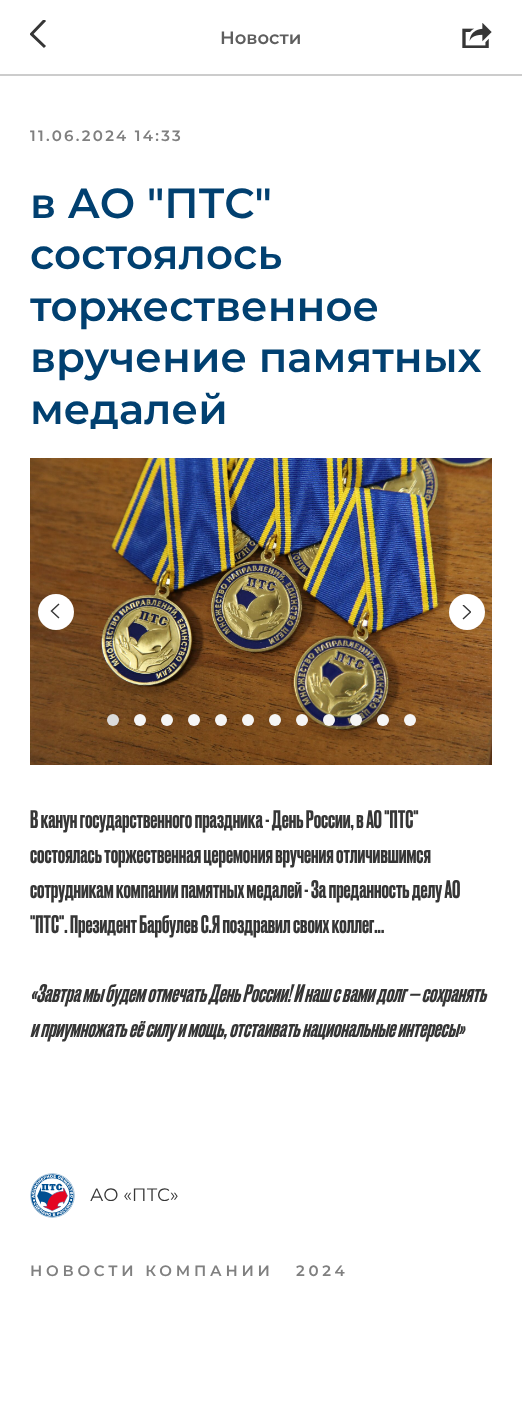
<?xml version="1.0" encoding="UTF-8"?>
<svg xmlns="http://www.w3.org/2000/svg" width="522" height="1411">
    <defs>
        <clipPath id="clip1"><rect x="30" y="20" width="17" height="30"/></clipPath>
        <clipPath id="clip2"><rect x="462" y="605" width="9" height="15"/></clipPath>
    </defs>
    <rect width="100%" height="100%" fill="#FFFFFF"/>
    <rect x="0" y="74" width="522" height="2" fill="#CCCCCC"/>
    <g clip-path="url(#clip1)">
        <path d="M 45 47 L 31.5 34 L 45 20" fill="none" stroke="#363636" stroke-width="3"/>
    </g>
    <text x="220" y="44" font-family="Montserrat" font-size="18" font-weight="600" fill="#5E5E5E">Новости</text>
    <image x="462" y="23" width="30" height="25" href="img_01.png"/>
    <text x="30" y="141" font-family="Montserrat" font-size="15" font-weight="600" letter-spacing="2.25" fill="#808080">11.06.2024 14:33</text>
    <text font-family="Montserrat" font-size="42" font-weight="600" fill="#014070">
        <tspan x="30" y="218">в АО "ПТС"</tspan>
        <tspan x="30" y="269">состоялось</tspan>
        <tspan x="30" y="321">торжественное</tspan>
        <tspan x="30" y="372">вручение памятных</tspan>
        <tspan x="30" y="424">медалей</tspan>
    </text>
    <image x="30" y="458" width="462" height="307" href="img_02.png"/>
    <circle cx="56" cy="612" r="18" fill="#FFFFFF"/>
    <path d="M 59 618 L 51.5 611 L 59 604" fill="none" stroke="#363636" stroke-width="1.4"/>
    <circle cx="467" cy="612" r="18" fill="#FFFFFF"/>
    <g clip-path="url(#clip2)">
        <path d="M 463 605 L 470.5 612 L 463 619" fill="none" stroke="#363636" stroke-width="1.4"/>
    </g>
    <circle cx="113" cy="720" r="6" fill="#DBDBDB"/>
    <circle cx="140" cy="720" r="6" fill="#F5F5F5"/>
    <circle cx="167" cy="720" r="6" fill="#F5F5F5"/>
    <circle cx="194" cy="720" r="6" fill="#F5F5F5"/>
    <circle cx="221" cy="720" r="6" fill="#F5F5F5"/>
    <circle cx="248" cy="720" r="6" fill="#F5F5F5"/>
    <circle cx="275" cy="720" r="6" fill="#F5F5F5"/>
    <circle cx="302" cy="720" r="6" fill="#F5F5F5"/>
    <circle cx="329" cy="720" r="6" fill="#F5F5F5"/>
    <circle cx="356" cy="720" r="6" fill="#F5F5F5"/>
    <circle cx="383" cy="720" r="6" fill="#F5F5F5"/>
    <circle cx="410" cy="720" r="6" fill="#F5F5F5"/>
    <text font-family="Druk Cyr" font-size="24" font-weight="500" fill="#363636">
        <tspan x="30" y="828">В канун государственного праздника - День России, в АО "ПТС"</tspan>
        <tspan x="30" y="863">состоялась торжественная церемония вручения отличившимся</tspan>
        <tspan x="30" y="898">сотрудникам компании памятных медалей - За преданность делу АО</tspan>
        <tspan x="30" y="933">"ПТС". Президент Барбулев С.Я поздравил своих коллег...</tspan>
    </text>
    <text font-family="Druk Cyr" font-size="24" font-weight="500" font-style="italic" fill="#363636">
        <tspan x="30" y="1002">«Завтра мы будем отмечать День России! И наш с вами долг — сохранять</tspan>
        <tspan x="30" y="1037">и приумножать её силу и мощь, отстаивать национальные интересы»</tspan>
    </text>
    <image x="30" y="1173" width="45" height="45" href="img_03.png"/>
    <text x="90" y="1201" font-family="Montserrat" font-size="18" fill="#363636">АО «ПТС»</text>
    <text x="30" y="1276" font-family="Montserrat" font-size="15" font-weight="600" letter-spacing="3.75" fill="#808080">НОВОСТИ КОМПАНИИ</text>
    <text x="296" y="1276" font-family="Montserrat" font-size="15" font-weight="600" letter-spacing="3.75" fill="#808080">2024</text>
</svg>
